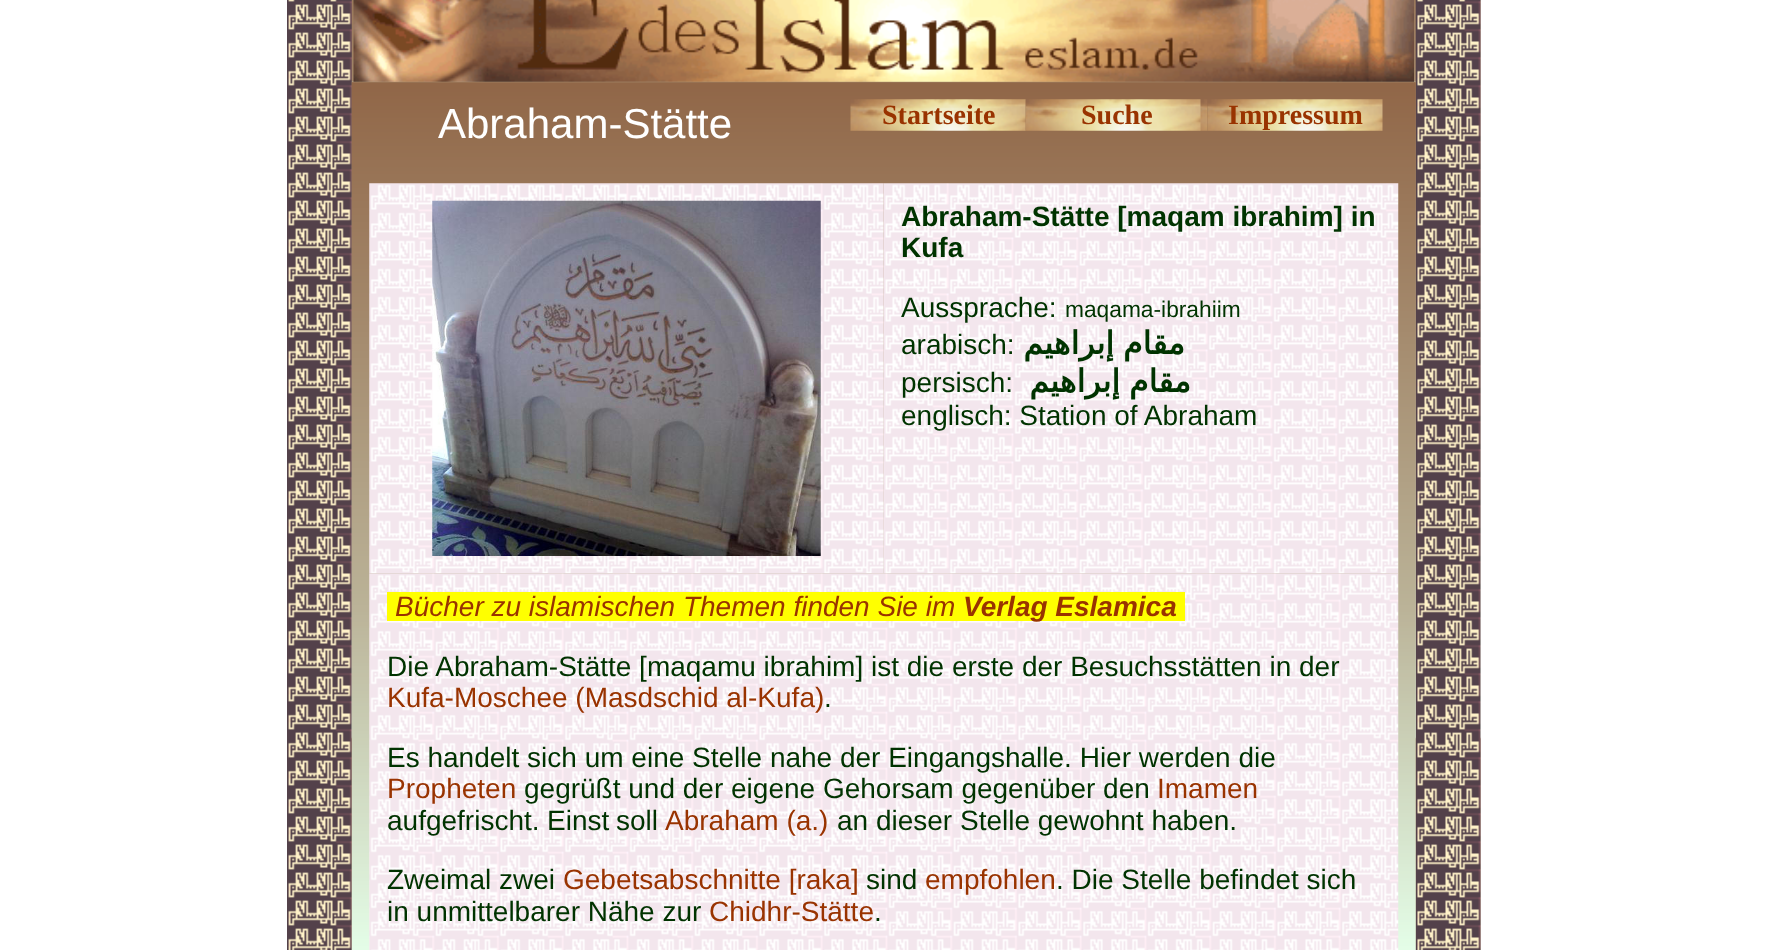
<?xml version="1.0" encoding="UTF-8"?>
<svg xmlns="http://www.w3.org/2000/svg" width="1766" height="950">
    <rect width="100%" height="100%" fill="#FFFFFF"/>
    <image x="351" y="0" width="1130" height="950" href="img_01.png"/>
    <image x="287" y="0" width="65" height="950" href="img_02.png"/>
    <image x="1415" y="0" width="66" height="950" href="img_04.png"/>
    <image x="351" y="81" width="1065" height="869" href="img_05.png"/>
    <image x="353" y="0" width="1061" height="82" href="img_03.png"/>
    <text x="438" y="138" font-family="Liberation Sans" font-size="42" fill="#FFFFFF">Abraham-Stätte</text>
    <image x="850" y="99" width="176" height="32" href="img_06.png"/>
    <text x="882" y="124" font-family="Liberation Serif" font-size="28" font-weight="700" fill="#993300">Startseite</text>
    <image x="1025" y="99" width="183" height="32" href="img_07.png"/>
    <text x="1081" y="124" font-family="Liberation Serif" font-size="28" font-weight="700" fill="#993300">Suche</text>
    <image x="1207" y="99" width="176" height="32" href="img_08.png"/>
    <text x="1228" y="124" font-family="Liberation Serif" font-size="28" font-weight="700" fill="#993300">Impressum</text>
    <image x="369" y="183" width="515" height="391" href="img_09.png"/>
    <image x="432" y="200" width="389" height="356" href="img_10.png"/>
    <image x="883" y="183" width="516" height="391" href="img_11.png"/>
    <text font-family="Liberation Sans" font-size="28" font-weight="700" fill="#003300">
        <tspan x="901" y="226">Abraham-Stätte [maqam ibrahim] in</tspan>
        <tspan x="901" y="257">Kufa</tspan>
    </text>
    <text x="901" y="317" font-family="Liberation Sans" font-size="28" fill="#003300">Aussprache:</text>
    <text x="1065" y="317" font-family="Liberation Sans" font-size="22.75" fill="#003300">maqama-ibrahiim</text>
    <text x="901" y="354" font-family="Liberation Sans" font-size="28" fill="#003300">arabisch:</text>
    <text x="1185" y="354" word-spacing="-1" font-family="DejaVu Sans" font-size="31.5" font-weight="700" direction="rtl" fill="#003300">مقام إبراهيم</text>
    <text x="901" y="392" font-family="Liberation Sans" font-size="28" fill="#003300">persisch:</text>
    <text x="1191" y="392" word-spacing="-1" font-family="DejaVu Sans" font-size="31.5" font-weight="700" direction="rtl" fill="#003300">مقام إبراهيم</text>
    <text x="901" y="425" font-family="Liberation Sans" font-size="28" fill="#003300">englisch: Station of Abraham</text>
    <image x="369" y="573" width="1030" height="377" href="img_12.png"/>
    <rect x="387" y="592" width="798" height="29" fill="#FFFF00"/>
    <text x="395" y="616" font-family="Liberation Sans" font-size="28" font-style="italic" fill="#993300">Bücher zu islamischen Themen finden Sie im</text>
    <text x="963" y="616" font-family="Liberation Sans" font-size="28" font-weight="700" font-style="italic" fill="#993300">Verlag Eslamica</text>
    <text x="387" y="676" font-family="Liberation Sans" font-size="28" fill="#003300">Die Abraham-Stätte [maqamu ibrahim] ist die erste der Besuchsstätten in der</text>
    <text x="387" y="707" font-family="Liberation Sans" font-size="28" fill="#993300">Kufa-Moschee (Masdschid al-Kufa)</text>
    <text x="824" y="707" font-family="Liberation Sans" font-size="28" fill="#003300">.</text>
    <text x="387" y="767" font-family="Liberation Sans" font-size="28" fill="#003300">Es handelt sich um eine Stelle nahe der Eingangshalle. Hier werden die</text>
    <text x="387" y="798" font-family="Liberation Sans" font-size="28" fill="#993300">Propheten</text>
    <text x="524" y="798" font-family="Liberation Sans" font-size="28" fill="#003300">gegrüßt und der eigene Gehorsam gegenüber den</text>
    <text x="1157" y="798" font-family="Liberation Sans" font-size="28" fill="#993300">Imamen</text>
    <text x="387" y="830" font-family="Liberation Sans" font-size="28" fill="#003300">aufgefrischt.</text>
    <text x="547" y="830" word-spacing="-1" font-family="Liberation Sans" font-size="28" fill="#003300">Einst soll</text>
    <text x="665" y="830" font-family="Liberation Sans" font-size="28" fill="#993300">Abraham (a.)</text>
    <text x="837" y="830" font-family="Liberation Sans" font-size="28" fill="#003300">an dieser Stelle gewohnt haben.</text>
    <text x="387" y="889" font-family="Liberation Sans" font-size="28" fill="#003300">Zweimal zwei</text>
    <text x="563" y="889" font-family="Liberation Sans" font-size="28" fill="#993300">Gebetsabschnitte [raka]</text>
    <text x="866" y="889" font-family="Liberation Sans" font-size="28" fill="#003300">sind</text>
    <text x="925" y="889" font-family="Liberation Sans" font-size="28" fill="#993300">empfohlen</text>
    <text x="1056" y="889" font-family="Liberation Sans" font-size="28" fill="#003300">. Die Stelle befindet sich</text>
    <text x="387" y="921" font-family="Liberation Sans" font-size="28" fill="#003300">in unmittelbarer Nähe zur</text>
    <text x="709" y="921" font-family="Liberation Sans" font-size="28" fill="#993300">Chidhr-Stätte</text>
    <text x="874" y="921" font-family="Liberation Sans" font-size="28" fill="#003300">.</text>
</svg>
